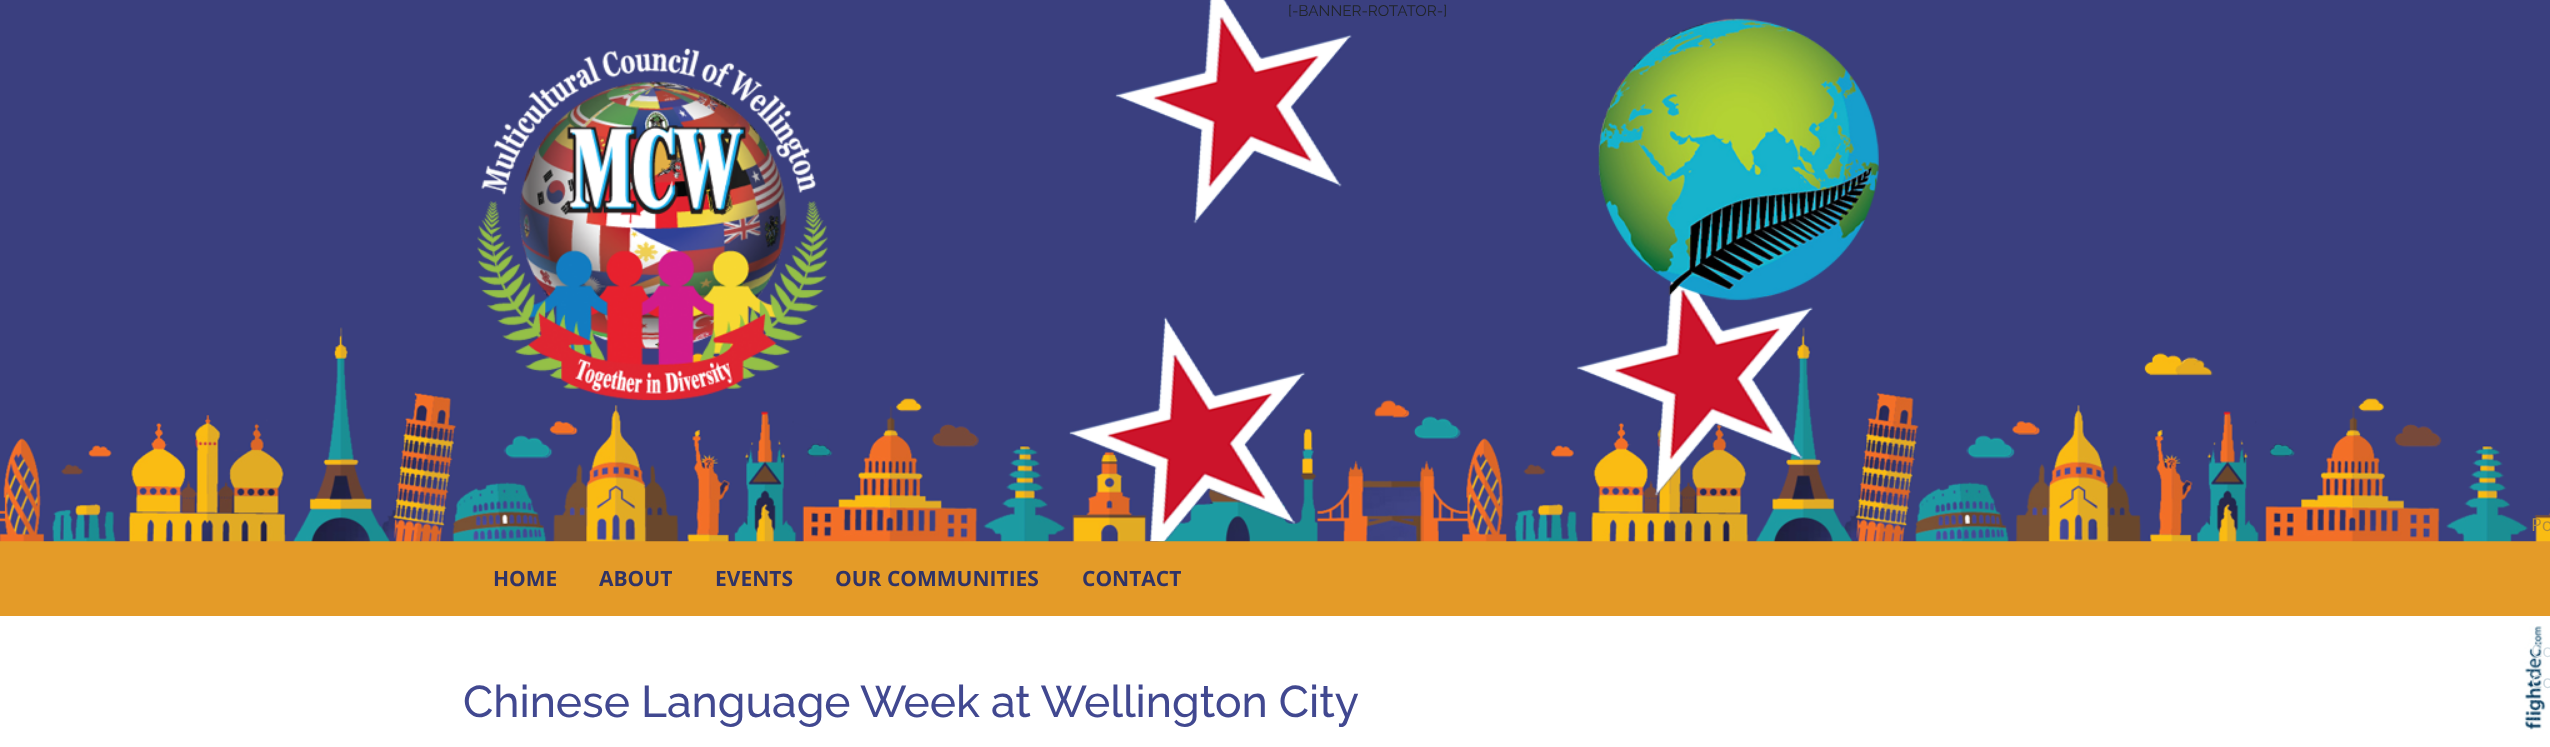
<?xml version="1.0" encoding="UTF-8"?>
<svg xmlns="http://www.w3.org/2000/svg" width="2550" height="747">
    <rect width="100%" height="100%" fill="#FFFFFF"/>
    <rect x="0" y="541" width="2550" height="75" fill="#E49B28"/>
    <image x="0" y="0" width="2550" height="542" href="img_01.png"/>
    <image x="1069" y="0" width="810" height="542" href="img_02.png"/>
    <text x="1288" y="16" font-family="Raleway" font-size="15.25" fill="#212529">[-BANNER-ROTATOR-]</text>
    <image x="477" y="48" width="351" height="353" href="img_03.png"/>
    <text x="493" y="586" font-family="Open Sans" font-size="21" font-weight="700" fill="#303366">HOME</text>
    <text x="599" y="586" font-family="Open Sans" font-size="21" font-weight="700" fill="#303366">ABOUT</text>
    <text x="715" y="586" font-family="Open Sans" font-size="21" font-weight="700" fill="#303366">EVENTS</text>
    <text x="835" y="586" font-family="Open Sans" font-size="21" font-weight="700" fill="#303366">OUR COMMUNITIES</text>
    <text x="1082" y="586" font-family="Open Sans" font-size="21" font-weight="700" fill="#303366">CONTACT</text>
    <text x="2531" y="531" font-family="Open Sans" font-size="18" fill="#B48E3B">Po</text>
    <image x="2524" y="626" width="22" height="104" href="img_04.png"/>
    <text x="2531" y="657" font-family="Open Sans" font-size="18" fill="#D5DFE5">Co</text>
    <text x="2531" y="688" font-family="Open Sans" font-size="18" fill="#CCD8DF">Co</text>
    <text x="463" y="717" word-spacing="-0.25" font-family="Raleway" font-size="44.4" font-weight="500" fill="#414890">Chinese Language Week at Wellington City</text>
</svg>
